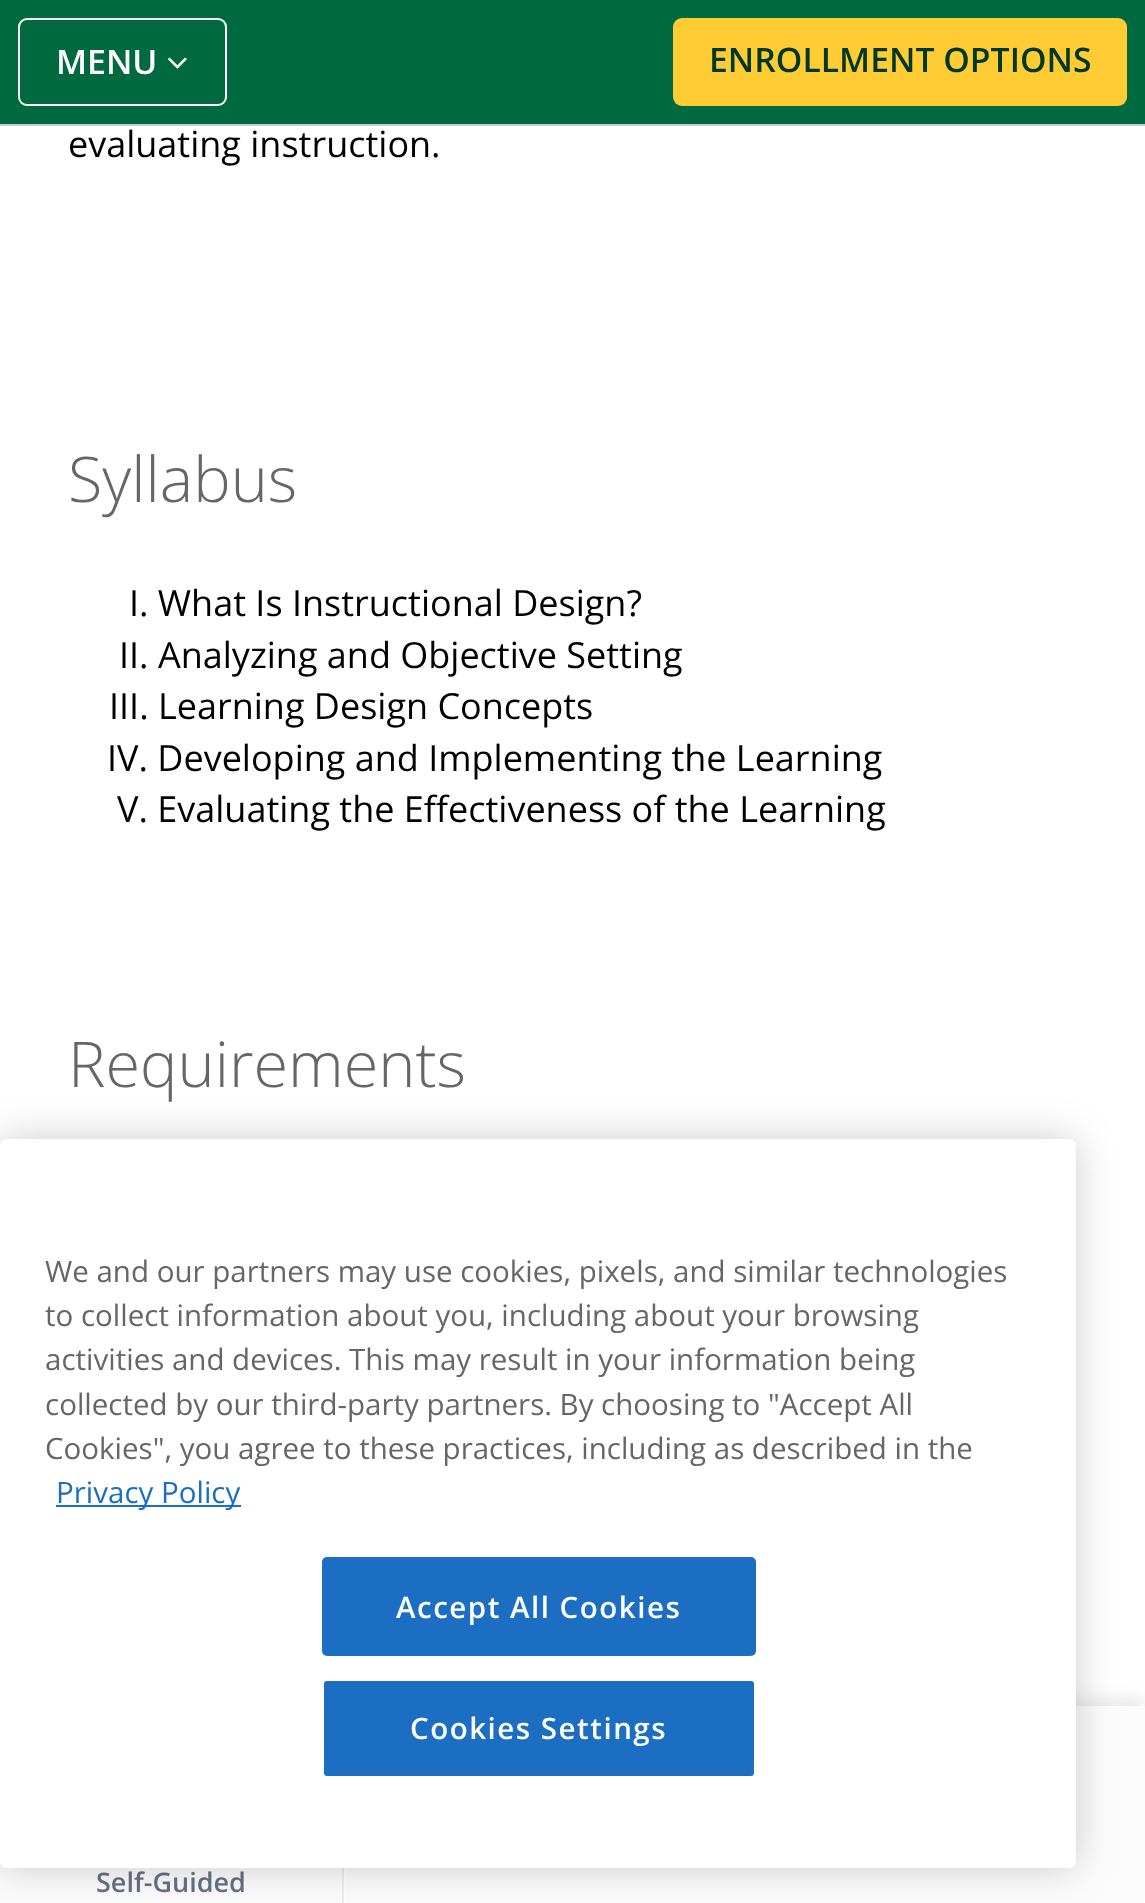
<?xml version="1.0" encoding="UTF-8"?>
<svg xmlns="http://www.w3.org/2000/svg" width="1145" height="1903">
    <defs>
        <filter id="blur1" x="-50%" y="-200%" width="200%" height="500%"><feGaussianBlur stdDeviation="7"/></filter>
        <filter id="blur2" x="-50%" y="-200%" width="200%" height="500%"><feGaussianBlur stdDeviation="20"/></filter>
    </defs>
    <rect width="100%" height="100%" fill="#FFFFFF"/>
    <rect x="0" y="0" width="1145" height="124" fill="#01693F"/>
    <rect x="0" y="124" width="1145" height="2" fill="#CCCCCC"/>
    <rect x="19" y="19" width="207" height="86" rx="8" fill="none" stroke="#FFFFFF" stroke-width="2"/>
    <text x="56" y="74" font-family="Open Sans" font-size="33.75" font-weight="600" fill="#FFFFFF">MENU</text>
    <image x="168" y="57" width="19" height="12" href="img_01.png"/>
    <rect x="673" y="18" width="454" height="88" rx="9" fill="#FFCC33"/>
    <text x="709" y="72" font-family="Open Sans" font-size="33.75" font-weight="600" fill="#013725">ENROLLMENT OPTIONS</text>
    <text x="68" y="157" font-family="Open Sans" font-size="36" fill="#000000">evaluating instruction.</text>
    <text x="68" y="502" font-family="Open Sans" font-size="63" font-weight="300" fill="#666666">Syllabus</text>
    <text x="129" y="616" font-family="Open Sans" font-size="36" fill="#000000">I. What Is Instructional Design?</text>
    <text x="119" y="668" font-family="Open Sans" font-size="36" fill="#000000">II. Analyzing and Objective Setting</text>
    <text x="109" y="719" font-family="Open Sans" font-size="36" fill="#000000">III. Learning Design Concepts</text>
    <text x="107" y="771" font-family="Open Sans" font-size="36" fill="#000000">IV. Developing and Implementing the Learning</text>
    <text x="117" y="822" font-family="Open Sans" font-size="36" fill="#000000">V. Evaluating the Effectiveness of the Learning</text>
    <text x="68" y="1087" font-family="Open Sans" font-size="63" font-weight="300" fill="#666666">Requirements</text>
    <rect x="0" y="1697" width="1145" height="198" fill="#000000" fill-opacity="0.08" filter="url(#blur1)"/>
    <rect x="0" y="1706" width="1145" height="194" fill="#FCFCFD"/>
    <rect x="342" y="1868" width="2" height="35" fill="#EAECF0"/>
    <text x="96" y="1892" font-family="Open Sans" font-size="27" font-weight="600" fill="#667085">Self-Guided</text>
    <rect x="344" y="1868" width="2" height="35" fill="#FFFFFF"/>
    <rect x="0" y="1139" width="1076" height="729" rx="6" fill="#000000" fill-opacity="0.2" filter="url(#blur2)"/>
    <rect x="0" y="1139" width="1076" height="729" rx="6" fill="#FFFFFF"/>
    <text font-family="Open Sans" font-size="29.5" fill="#666666">
        <tspan x="45" y="1282">We and our partners may use cookies, pixels, and similar technologies</tspan>
        <tspan x="45" y="1326">to collect information about you, including about your browsing</tspan>
        <tspan x="45" y="1370">activities and devices. This may result in your information being</tspan>
        <tspan x="45" y="1415">collected by our third-party partners. By choosing to "Accept All</tspan>
        <tspan x="45" y="1459">Cookies", you agree to these practices, including as described in the</tspan>
    </text>
    <rect x="56" y="1505" width="185" height="2" fill="#1B6EC2"/>
    <text x="56" y="1503" font-family="Open Sans" font-size="29.5" fill="#1B6EC2">Privacy Policy</text>
    <rect x="323" y="1558" width="432" height="97" rx="4" fill="#1B6EC2" stroke="#1B6EC2" stroke-width="2"/>
    <text x="396" y="1618" font-family="Open Sans" font-size="29.5" font-weight="600" letter-spacing="1.5" fill="#FFFFFF">Accept All Cookies</text>
    <rect x="323" y="1680" width="432" height="97" rx="4" fill="#1B6EC2" stroke="#FFFFFF" stroke-width="2"/>
    <text x="410" y="1739" font-family="Open Sans" font-size="29.5" font-weight="600" letter-spacing="1.5" fill="#FFFFFF">Cookies Settings</text>
</svg>
